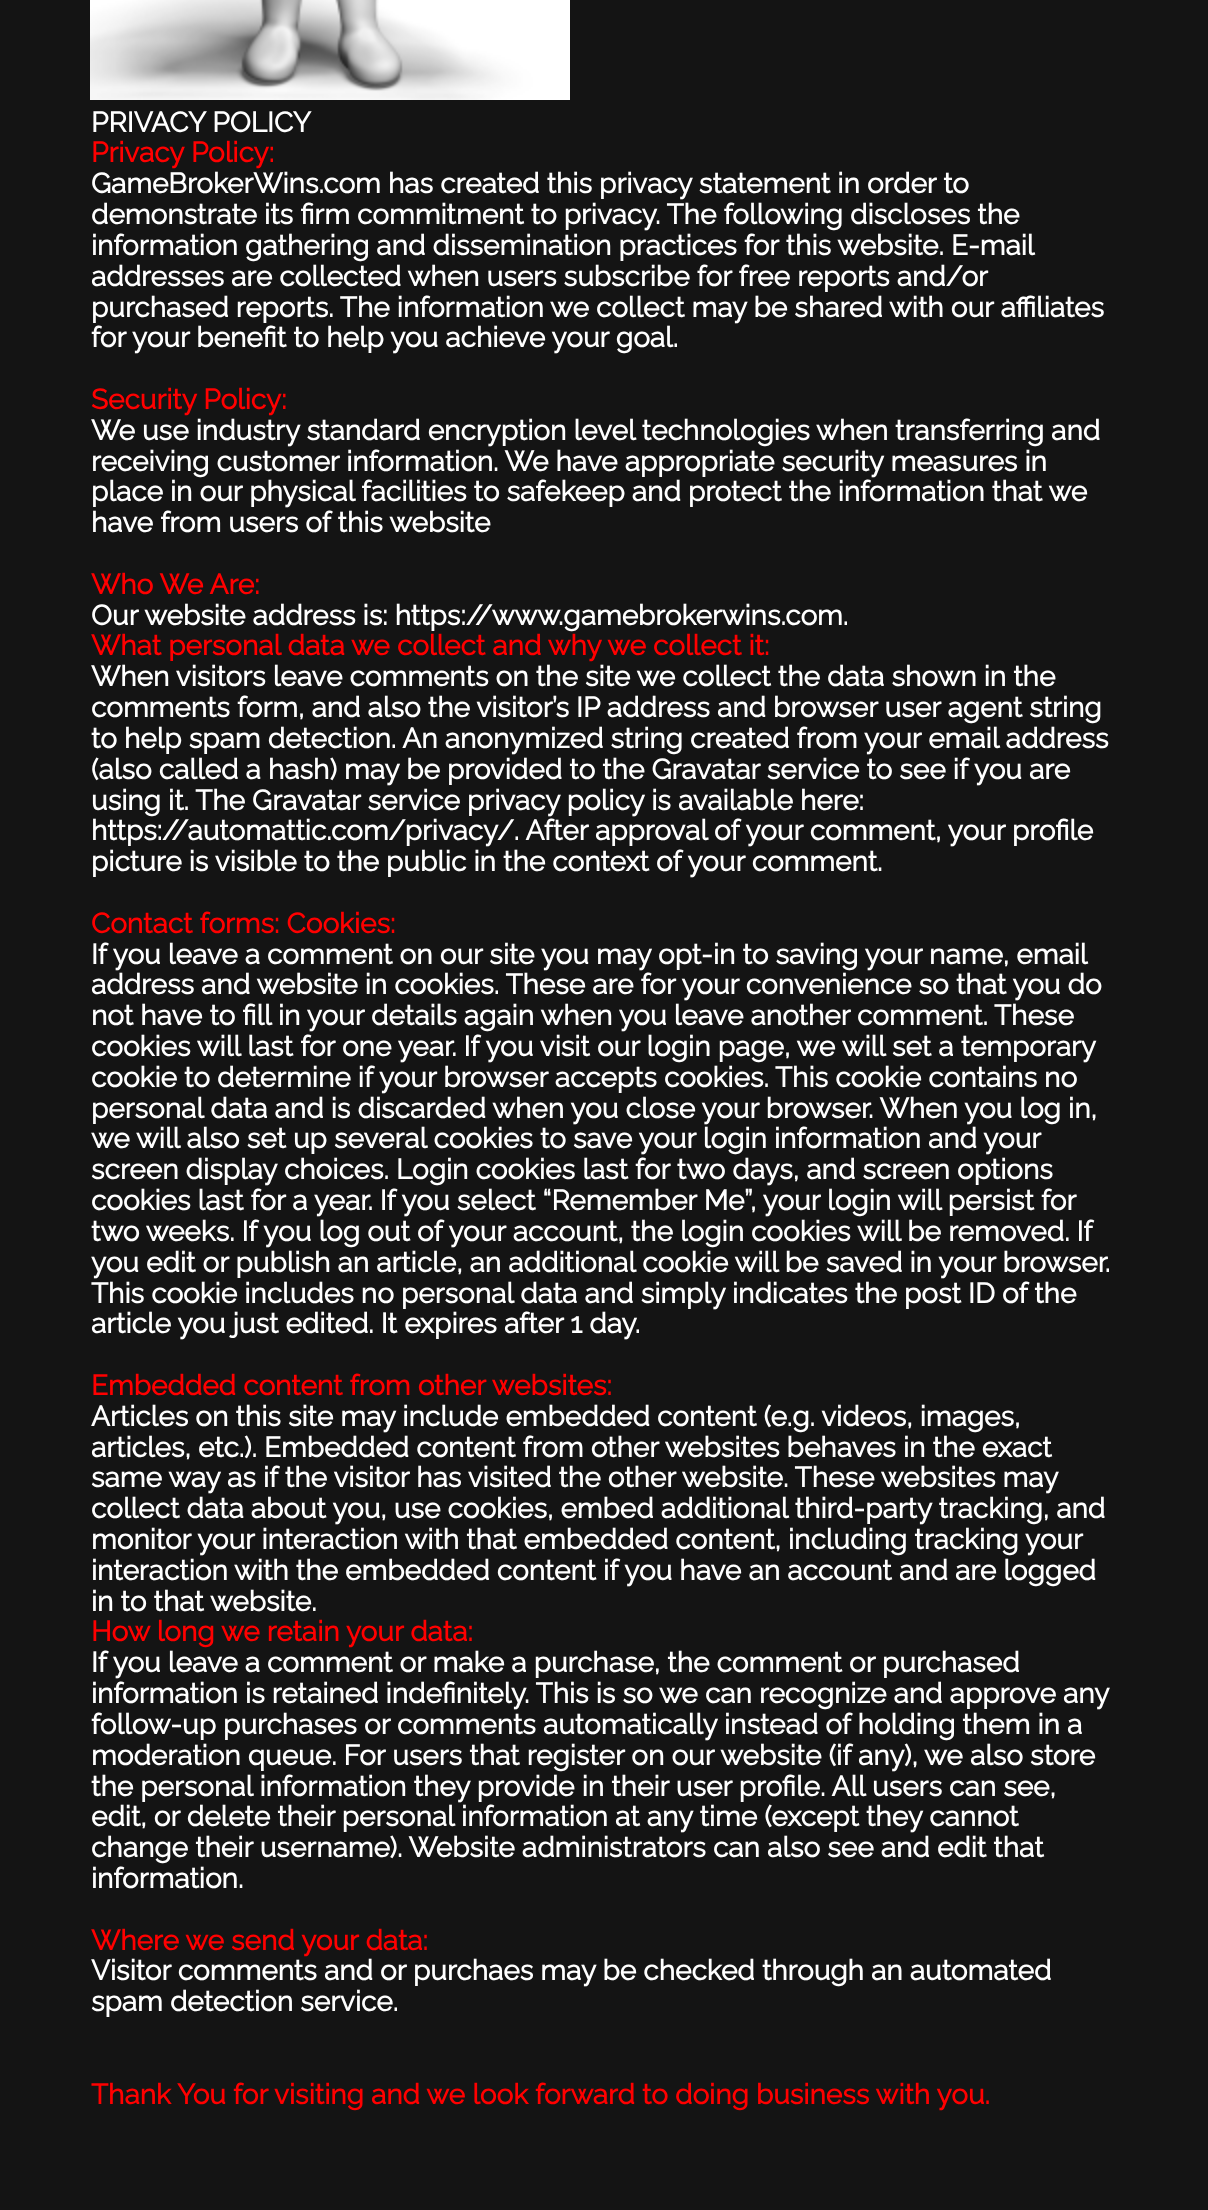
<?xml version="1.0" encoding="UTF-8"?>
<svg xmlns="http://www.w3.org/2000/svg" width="1208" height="2210">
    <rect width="100%" height="100%" fill="#141414"/>
    <image x="90" y="0" width="480" height="100" href="img_01.png"/>
    <text x="91" y="132" font-family="Raleway" font-size="28" font-weight="700" fill="#FFFFFF">PRIVACY POLICY</text>
    <text x="91" y="162" font-family="Raleway" font-size="28" font-weight="700" fill="#FF0000">Privacy Policy:</text>
    <text font-family="Raleway" font-size="28" font-weight="700" fill="#FFFFFF">
        <tspan x="91" y="193">GameBrokerWins.com has created this privacy statement in order to</tspan>
        <tspan x="91" y="224">demonstrate its firm commitment to privacy. The following discloses the</tspan>
        <tspan x="91" y="255">information gathering and dissemination practices for this website. E-mail</tspan>
        <tspan x="91" y="286">addresses are collected when users subscribe for free reports and/or</tspan>
        <tspan x="91" y="317">purchased reports. The information we collect may be shared with our affiliates</tspan>
        <tspan x="91" y="347">for your benefit to help you achieve your goal.</tspan>
    </text>
    <text x="91" y="409" font-family="Raleway" font-size="28" font-weight="700" fill="#FF0000">Security Policy:</text>
    <text font-family="Raleway" font-size="28" font-weight="700" fill="#FFFFFF">
        <tspan x="91" y="440">We use industry standard encryption level technologies when transferring and</tspan>
        <tspan x="91" y="471">receiving customer information. We have appropriate security measures in</tspan>
        <tspan x="91" y="501">place in our physical facilities to safekeep and protect the information that we</tspan>
        <tspan x="91" y="532">have from users of this website</tspan>
    </text>
    <text x="91" y="594" font-family="Raleway" font-size="28" font-weight="700" fill="#FF0000">Who We Are:</text>
    <text x="91" y="625" font-family="Raleway" font-size="28" font-weight="700" fill="#FFFFFF">Our website address is: https://www.gamebrokerwins.com.</text>
    <text x="91" y="655" font-family="Raleway" font-size="28" font-weight="700" fill="#FF0000">What personal data we collect and why we collect it:</text>
    <text font-family="Raleway" font-size="28" font-weight="700" fill="#FFFFFF">
        <tspan x="91" y="686">When visitors leave comments on the site we collect the data shown in the</tspan>
        <tspan x="91" y="717">comments form, and also the visitor’s IP address and browser user agent string</tspan>
        <tspan x="91" y="748">to help spam detection. An anonymized string created from your email address</tspan>
        <tspan x="91" y="779">(also called a hash) may be provided to the Gravatar service to see if you are</tspan>
        <tspan x="91" y="810">using it. The Gravatar service privacy policy is available here:</tspan>
        <tspan x="91" y="840">https://automattic.com/privacy/. After approval of your comment, your profile</tspan>
        <tspan x="91" y="871">picture is visible to the public in the context of your comment.</tspan>
    </text>
    <text x="91" y="933" font-family="Raleway" font-size="28" font-weight="700" fill="#FF0000">Contact forms: Cookies:</text>
    <text font-family="Raleway" font-size="28" font-weight="700" fill="#FFFFFF">
        <tspan x="91" y="964">If you leave a comment on our site you may opt-in to saving your name, email</tspan>
        <tspan x="91" y="994">address and website in cookies. These are for your convenience so that you do</tspan>
        <tspan x="91" y="1025">not have to fill in your details again when you leave another comment. These</tspan>
        <tspan x="91" y="1056">cookies will last for one year. If you visit our login page, we will set a temporary</tspan>
        <tspan x="91" y="1087">cookie to determine if your browser accepts cookies. This cookie contains no</tspan>
        <tspan x="91" y="1118">personal data and is discarded when you close your browser. When you log in,</tspan>
        <tspan x="91" y="1148">we will also set up several cookies to save your login information and your</tspan>
        <tspan x="91" y="1179">screen display choices. Login cookies last for two days, and screen options</tspan>
        <tspan x="91" y="1210">cookies last for a year. If you select “Remember Me”, your login will persist for</tspan>
        <tspan x="91" y="1241">two weeks. If you log out of your account, the login cookies will be removed. If</tspan>
        <tspan x="91" y="1272">you edit or publish an article, an additional cookie will be saved in your browser.</tspan>
        <tspan x="91" y="1303">This cookie includes no personal data and simply indicates the post ID of the</tspan>
        <tspan x="91" y="1333">article you just edited. It expires after 1 day.</tspan>
    </text>
    <text x="91" y="1395" font-family="Raleway" font-size="28" font-weight="700" fill="#FF0000">Embedded content from other websites:</text>
    <text font-family="Raleway" font-size="28" font-weight="700" fill="#FFFFFF">
        <tspan x="91" y="1426">Articles on this site may include embedded content (e.g. videos, images,</tspan>
        <tspan x="91" y="1457">articles, etc.). Embedded content from other websites behaves in the exact</tspan>
        <tspan x="91" y="1487">same way as if the visitor has visited the other website. These websites may</tspan>
        <tspan x="91" y="1518">collect data about you, use cookies, embed additional third-party tracking, and</tspan>
        <tspan x="91" y="1549">monitor your interaction with that embedded content, including tracking your</tspan>
        <tspan x="91" y="1580">interaction with the embedded content if you have an account and are logged</tspan>
        <tspan x="91" y="1611">in to that website.</tspan>
    </text>
    <text x="91" y="1641" font-family="Raleway" font-size="28" font-weight="700" fill="#FF0000">How long we retain your data:</text>
    <text font-family="Raleway" font-size="28" font-weight="700" fill="#FFFFFF">
        <tspan x="91" y="1672">If you leave a comment or make a purchase, the comment or purchased</tspan>
        <tspan x="91" y="1703">information is retained indefinitely. This is so we can recognize and approve any</tspan>
        <tspan x="91" y="1734">follow-up purchases or comments automatically instead of holding them in a</tspan>
        <tspan x="91" y="1765">moderation queue. For users that register on our website (if any), we also store</tspan>
        <tspan x="91" y="1796">the personal information they provide in their user profile. All users can see,</tspan>
        <tspan x="91" y="1826">edit, or delete their personal information at any time (except they cannot</tspan>
        <tspan x="91" y="1857">change their username). Website administrators can also see and edit that</tspan>
        <tspan x="91" y="1888">information.</tspan>
    </text>
    <text x="91" y="1950" font-family="Raleway" font-size="28" font-weight="700" fill="#FF0000">Where we send your data:</text>
    <text font-family="Raleway" font-size="28" font-weight="700" fill="#FFFFFF">
        <tspan x="91" y="1980">Visitor comments and or purchaes may be checked through an automated</tspan>
        <tspan x="91" y="2011">spam detection service.</tspan>
    </text>
    <text x="91" y="2104" font-family="Raleway" font-size="28" font-weight="700" fill="#FF0000">Thank You for visiting and we look forward to doing business with you.</text>
</svg>
